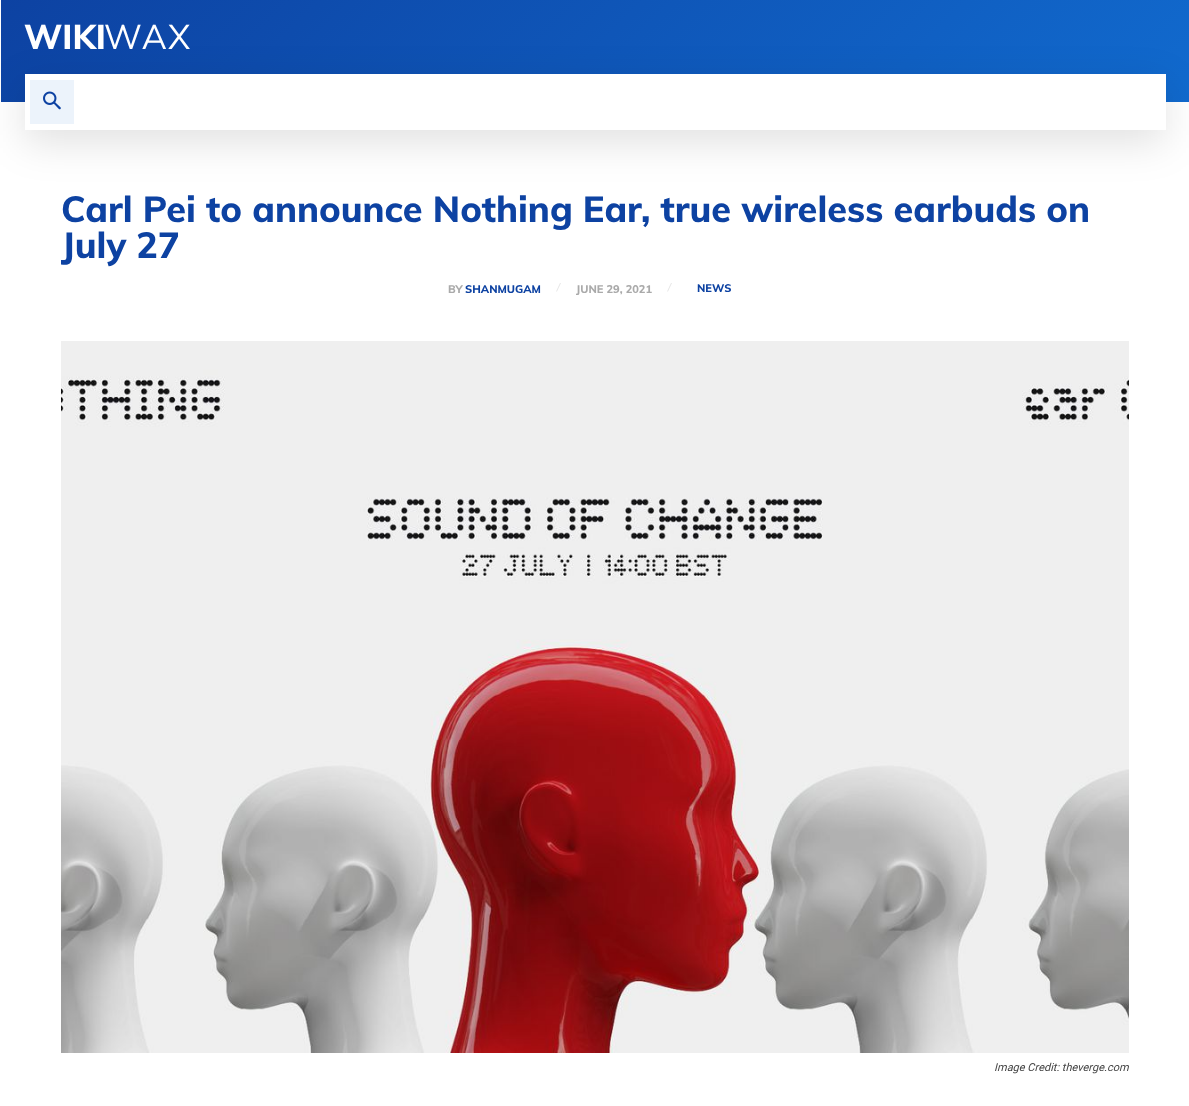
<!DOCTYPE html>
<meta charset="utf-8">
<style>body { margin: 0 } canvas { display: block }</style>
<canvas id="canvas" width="1189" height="1106"></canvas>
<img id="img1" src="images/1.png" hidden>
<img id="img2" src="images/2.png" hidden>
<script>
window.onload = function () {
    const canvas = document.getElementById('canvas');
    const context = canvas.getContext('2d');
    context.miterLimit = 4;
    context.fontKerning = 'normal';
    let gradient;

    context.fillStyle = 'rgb(255, 255, 255)';
    context.fillRect(0, 0, 1189, 1106);
    gradient = context.createLinearGradient(918, 374, 272, -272);
    gradient.addColorStop(0, 'rgb(17, 106, 206)');
    gradient.addColorStop(1, 'rgb(13, 66, 162)');
    context.fillStyle = gradient;
    context.fillRect(1, 0, 1188, 102);
    context.fillStyle = 'rgba(0, 0, 0, 0.12)';
    context.filter = 'blur(20px)';
    context.beginPath();
    context.rect(24, 86, 1141, 56);
    context.fill();
    context.filter = 'none';
    context.fillStyle = 'rgb(255, 255, 255)';
    context.fillRect(25, 74, 1141, 56);
    context.fillStyle = 'rgb(236, 243, 251)';
    context.fillRect(30, 80, 44, 44);
    context.drawImage(document.getElementById('img1'), 43, 91, 18, 19);
    context.fillStyle = 'rgb(230, 230, 230)';
    context.beginPath();
    context.moveTo(560, 283);
    context.lineTo(556, 291.5);
    context.lineTo(557, 291.5);
    context.lineTo(561, 283);
    context.closePath();
    context.fill();
    context.beginPath();
    context.moveTo(671, 283);
    context.lineTo(667, 291.5);
    context.lineTo(668, 291.5);
    context.lineTo(672, 283);
    context.closePath();
    context.fill();
    context.drawImage(document.getElementById('img2'), 61, 341, 1068, 712);
    context.font = '800 34px Muli';
    context.fillStyle = 'rgb(255, 255, 255)';
    context.fillText('WIKI', 24, 49);
    context.letterSpacing = '2px';
    context.font = '34px Muli';
    context.fillText('WAX', 104, 49);
    context.letterSpacing = '0px';
    context.font = '800 36px Muli';
    context.fillStyle = 'rgb(13, 66, 162)';
    context.fillText('Carl Pei to announce Nothing Ear, true wireless earbuds on', 61, 222);
    context.fillText('July 27', 61, 258);
    context.font = '800 11px Muli';
    context.fillStyle = 'rgb(170, 170, 170)';
    context.fillText('BY', 448, 293);
    context.fillStyle = 'rgb(13, 66, 162)';
    context.fillText('SHANMUGAM', 465, 293);
    context.fillStyle = 'rgb(170, 170, 170)';
    context.fillText('JUNE 29, 2021', 576, 293);
    context.fillStyle = 'rgb(13, 66, 162)';
    context.fillText('NEWS', 697, 292);
    context.font = 'italic 11px Roboto';
    context.fillStyle = 'rgb(68, 68, 68)';
    context.fillText('Image Credit: theverge.com', 994, 1071);
};
</script>
